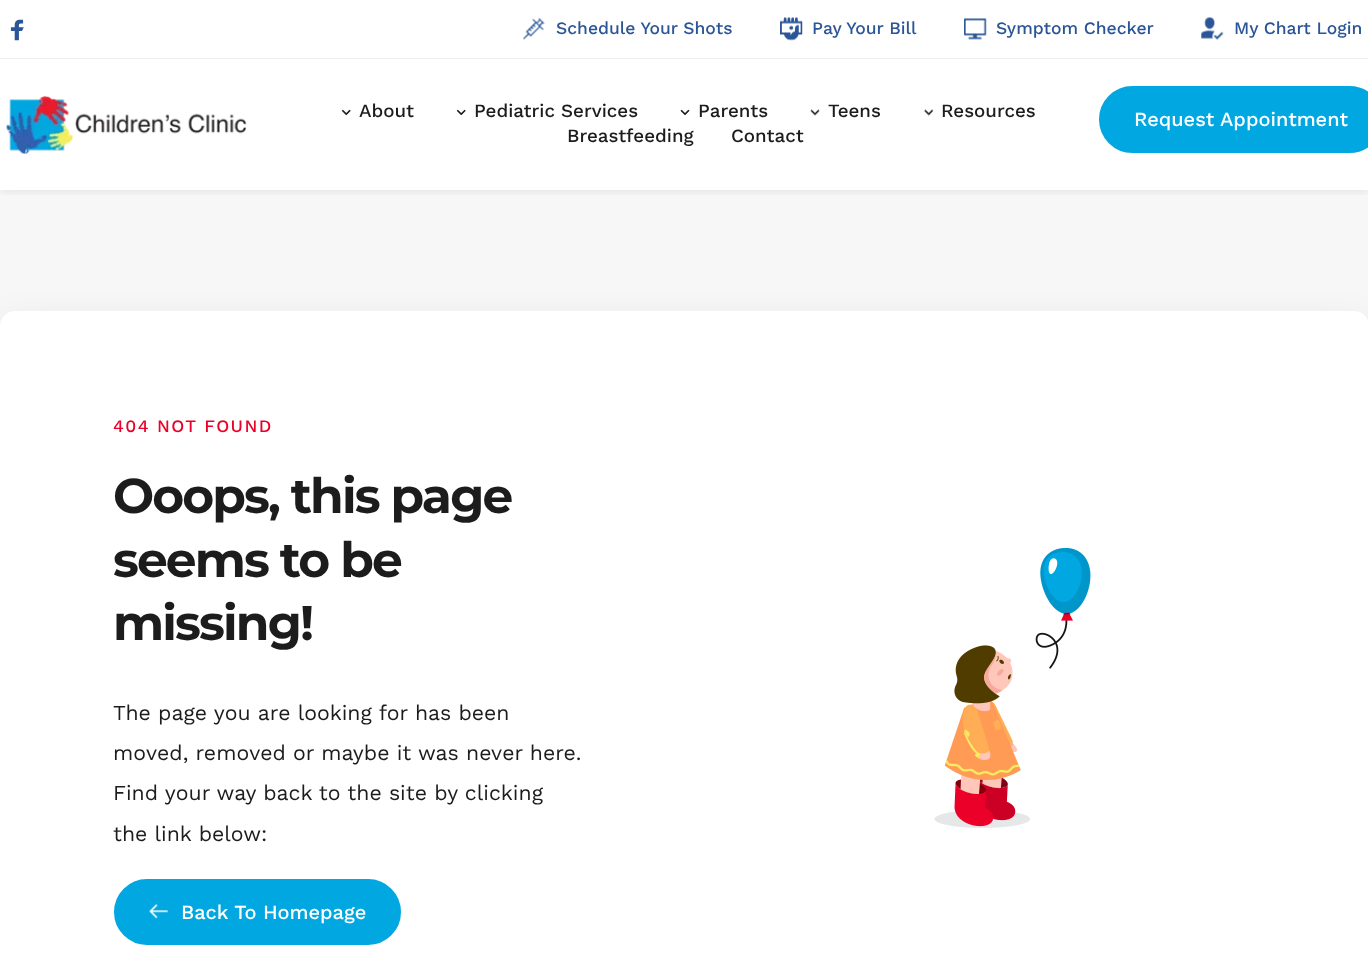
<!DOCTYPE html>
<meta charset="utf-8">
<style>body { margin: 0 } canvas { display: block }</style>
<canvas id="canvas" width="1368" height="979"></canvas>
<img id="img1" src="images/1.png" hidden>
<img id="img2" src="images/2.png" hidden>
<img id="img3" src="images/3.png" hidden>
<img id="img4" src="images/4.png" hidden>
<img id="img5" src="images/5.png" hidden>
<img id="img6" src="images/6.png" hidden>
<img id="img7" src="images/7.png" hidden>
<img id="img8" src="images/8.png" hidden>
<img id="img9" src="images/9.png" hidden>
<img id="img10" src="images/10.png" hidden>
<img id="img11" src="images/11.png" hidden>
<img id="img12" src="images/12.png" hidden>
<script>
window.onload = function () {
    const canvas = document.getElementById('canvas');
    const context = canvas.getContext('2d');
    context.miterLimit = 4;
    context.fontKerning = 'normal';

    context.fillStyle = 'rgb(255, 255, 255)';
    context.fillRect(0, 0, 1368, 979);
    context.fillStyle = 'rgb(247, 247, 247)';
    context.fillRect(0, 190, 1368, 136);
    context.save();
    context.beginPath();
    context.rect(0, 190, 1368, 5);
    context.clip();
    context.fillStyle = 'rgba(0, 0, 0, 0.1)';
    context.filter = 'blur(6px)';
    context.beginPath();
    context.rect(0, 0, 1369, 190);
    context.fill();
    context.filter = 'none';
    context.restore();
    context.drawImage(document.getElementById('img1'), 10, 19, 14, 22);
    context.drawImage(document.getElementById('img2'), 523, 17, 22, 23);
    context.drawImage(document.getElementById('img3'), 780, 17, 23, 24);
    context.drawImage(document.getElementById('img4'), 964, 18, 23, 22);
    context.drawImage(document.getElementById('img5'), 1201, 17, 23, 23);
    context.fillStyle = 'rgb(237, 237, 238)';
    context.fillRect(0, 58, 1368, 1);
    context.drawImage(document.getElementById('img6'), 6, 96, 241, 58);
    context.drawImage(document.getElementById('img7'), 341, 109, 10, 6);
    context.drawImage(document.getElementById('img7'), 456, 109, 10, 6);
    context.drawImage(document.getElementById('img8'), 680, 109, 10, 6);
    context.drawImage(document.getElementById('img9'), 810, 109, 10, 7);
    context.drawImage(document.getElementById('img10'), 924, 109, 10, 7);
    context.fillStyle = 'rgb(0, 167, 225)';
    context.beginPath();
    context.roundRect(1100.5, 87.5, 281, 64, 32);
    context.fill();
    context.strokeStyle = 'rgb(0, 167, 225)';
    context.lineWidth = 3;
    context.stroke();
    context.fillStyle = 'rgba(28, 28, 28, 0.12)';
    context.filter = 'blur(19px)';
    context.beginPath();
    context.roundRect(0, 328, 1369, 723, 15);
    context.fill();
    context.filter = 'none';
    context.fillStyle = 'rgb(255, 255, 255)';
    context.beginPath();
    context.roundRect(0, 311, 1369, 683, 15);
    context.fill();
    context.fillStyle = 'rgb(0, 167, 225)';
    context.beginPath();
    context.roundRect(115.5, 880.5, 284, 63, 31.5);
    context.fill();
    context.stroke();
    context.drawImage(document.getElementById('img11'), 149, 904, 19, 15);
    context.drawImage(document.getElementById('img12'), 934, 547, 157, 281);
    context.font = '500 17.5px Work Sans';
    context.fillStyle = 'rgb(43, 85, 151)';
    context.fillText('Schedule Your Shots', 556, 34);
    context.fillText('Pay Your Bill', 812, 34);
    context.fillText('Symptom Checker', 996, 34);
    context.fillText('My Chart Login', 1234, 34);
    context.font = '500 18.75px Work Sans';
    context.fillStyle = 'rgb(28, 28, 28)';
    context.fillText('About', 359, 117);
    context.fillText('Pediatric Services', 474, 117);
    context.fillText('Parents', 698, 117);
    context.fillText('Teens', 828, 117);
    context.fillText('Resources', 941, 117);
    context.fillText('Breastfeeding', 567, 142);
    context.fillText('Contact', 731, 142);
    context.font = '500 20px Work Sans';
    context.fillStyle = 'rgb(255, 255, 255)';
    context.fillText('Request Appointment', 1134, 126);
    context.letterSpacing = '1.4px';
    context.font = '500 17.5px Work Sans';
    context.fillStyle = 'rgb(234, 0, 41)';
    context.fillText('404 NOT FOUND', 113, 432);
    context.letterSpacing = '-1.9px';
    context.font = '100 48.75px Montserrat';
    context.fillStyle = 'rgb(28, 28, 28)';
    context.fillText('Ooops, this page', 113, 513);
    context.fillText('seems to be', 113, 577);
    context.fillText('missing!', 113, 640);
    context.letterSpacing = '0px';
    context.font = '21.25px Work Sans';
    context.fillText('The page you are looking for has been', 113, 720);
    context.fillText('moved, removed or maybe it was never here.', 113, 760);
    context.fillText('Find your way back to the site by clicking', 113, 800);
    context.fillText('the link below:', 113, 841);
    context.font = '500 20px Work Sans';
    context.fillStyle = 'rgb(255, 255, 255)';
    context.fillText('Back To Homepage', 181, 919);
};
</script>
